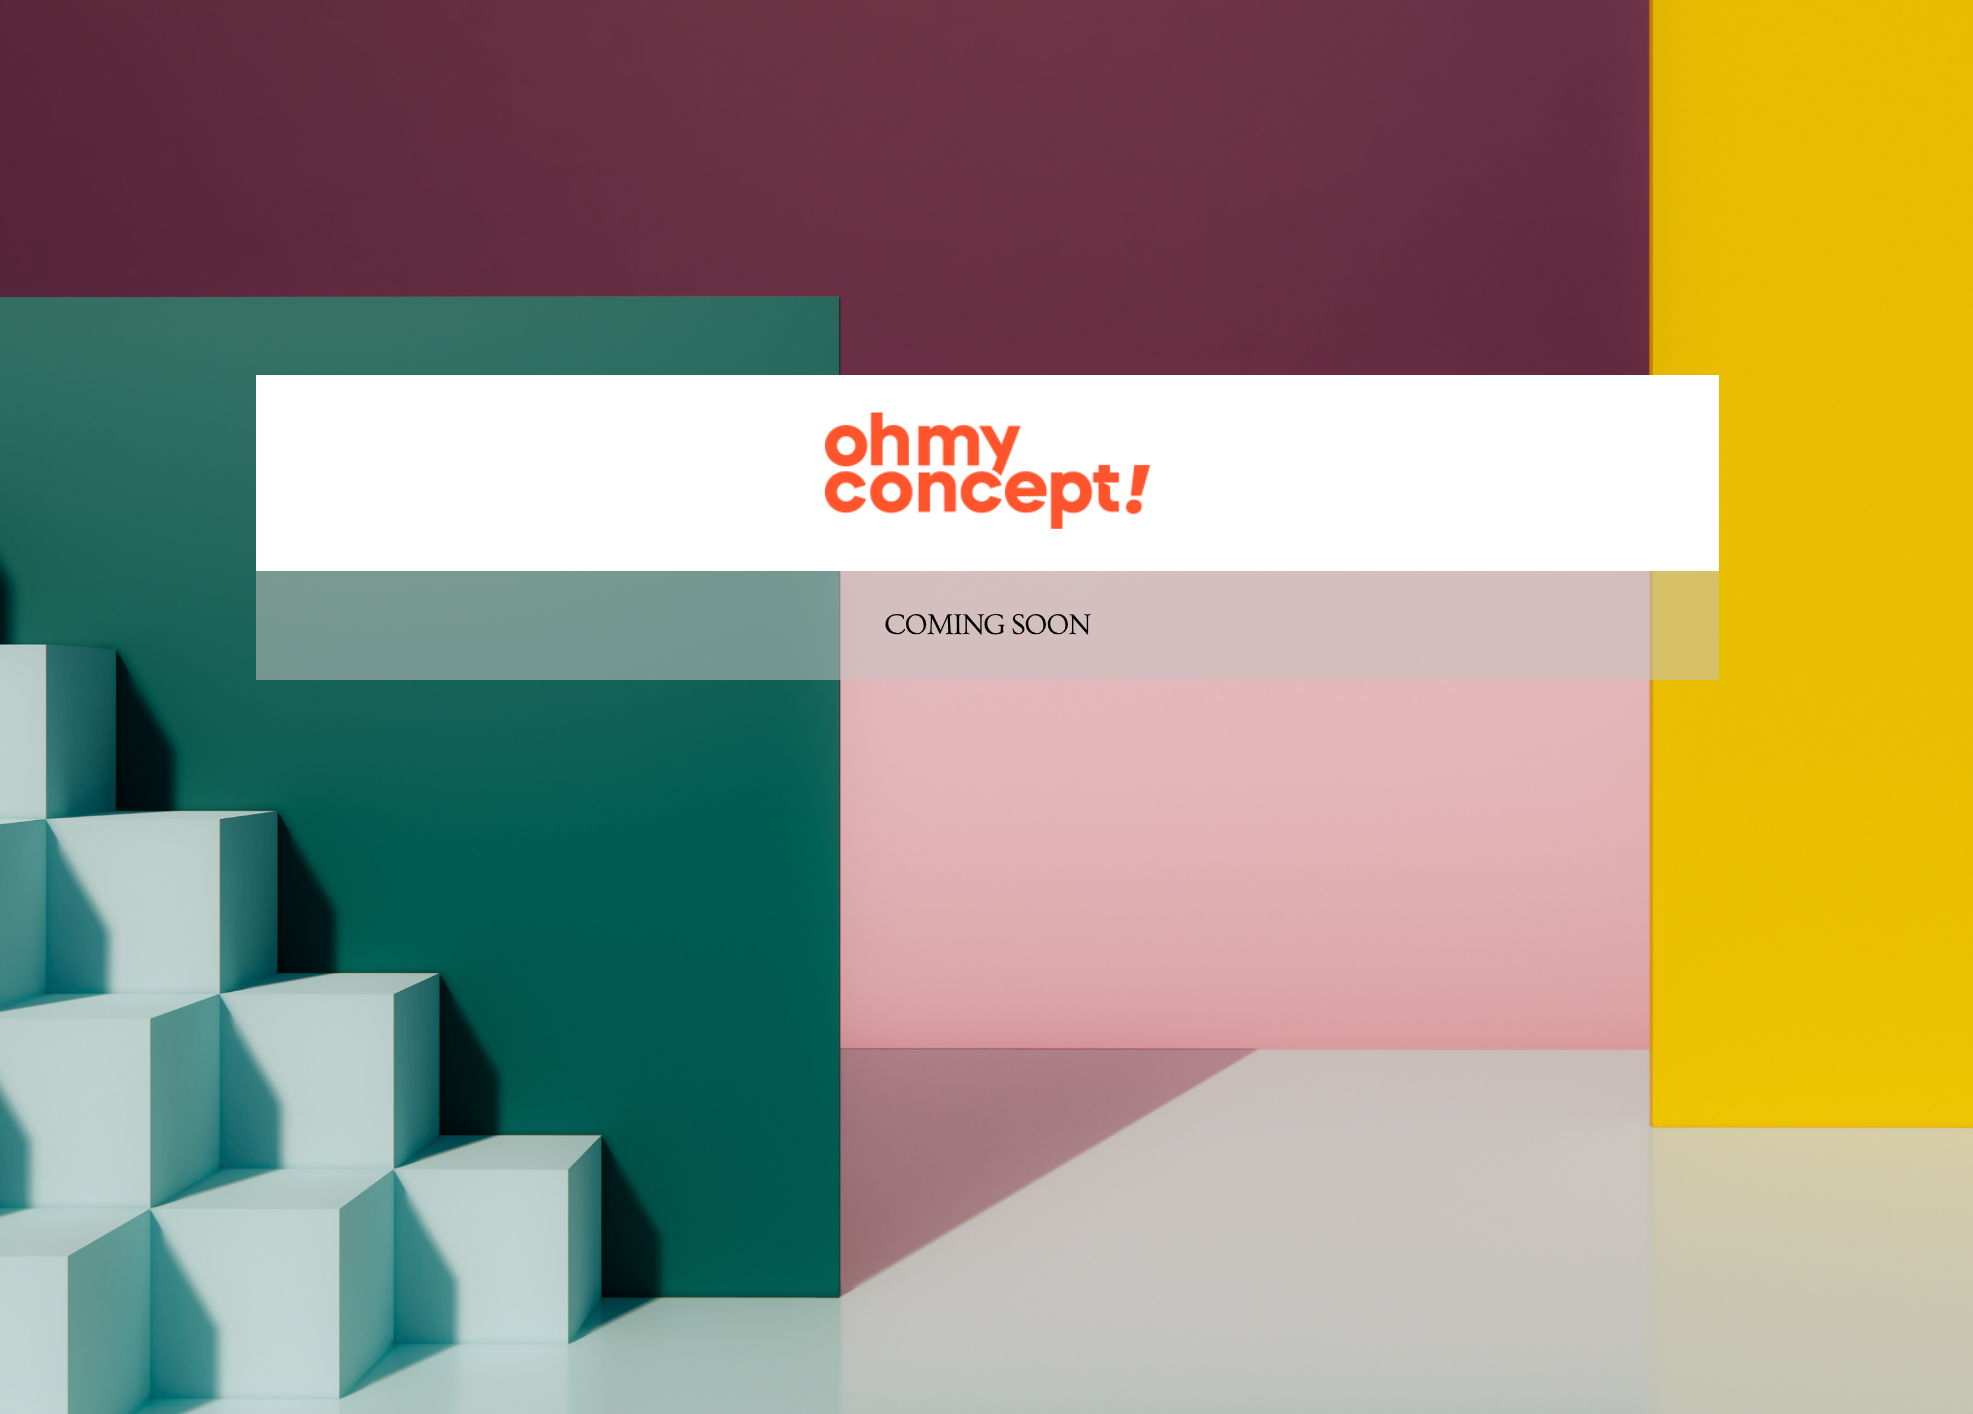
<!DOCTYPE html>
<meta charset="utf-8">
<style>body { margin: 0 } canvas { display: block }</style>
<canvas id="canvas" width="1973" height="1414"></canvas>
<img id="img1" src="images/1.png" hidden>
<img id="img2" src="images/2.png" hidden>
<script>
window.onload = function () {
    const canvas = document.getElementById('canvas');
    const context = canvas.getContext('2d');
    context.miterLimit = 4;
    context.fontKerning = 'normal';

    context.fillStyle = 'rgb(255, 255, 255)';
    context.fillRect(0, 0, 1973, 1414);
    context.drawImage(document.getElementById('img1'), 0, 0, 1973, 1414);
    context.fillRect(256, 375, 1463, 196);
    context.drawImage(document.getElementById('img2'), 825, 412, 325, 117);
    context.fillStyle = 'rgba(197, 196, 192, 0.54)';
    context.fillRect(256, 571, 1463, 109);
    context.letterSpacing = '-1.25px';
    context.font = '30px Ovo';
    context.fillStyle = 'rgb(0, 0, 0)';
    context.fillText('COMING SOON', 884, 634);
};
</script>
